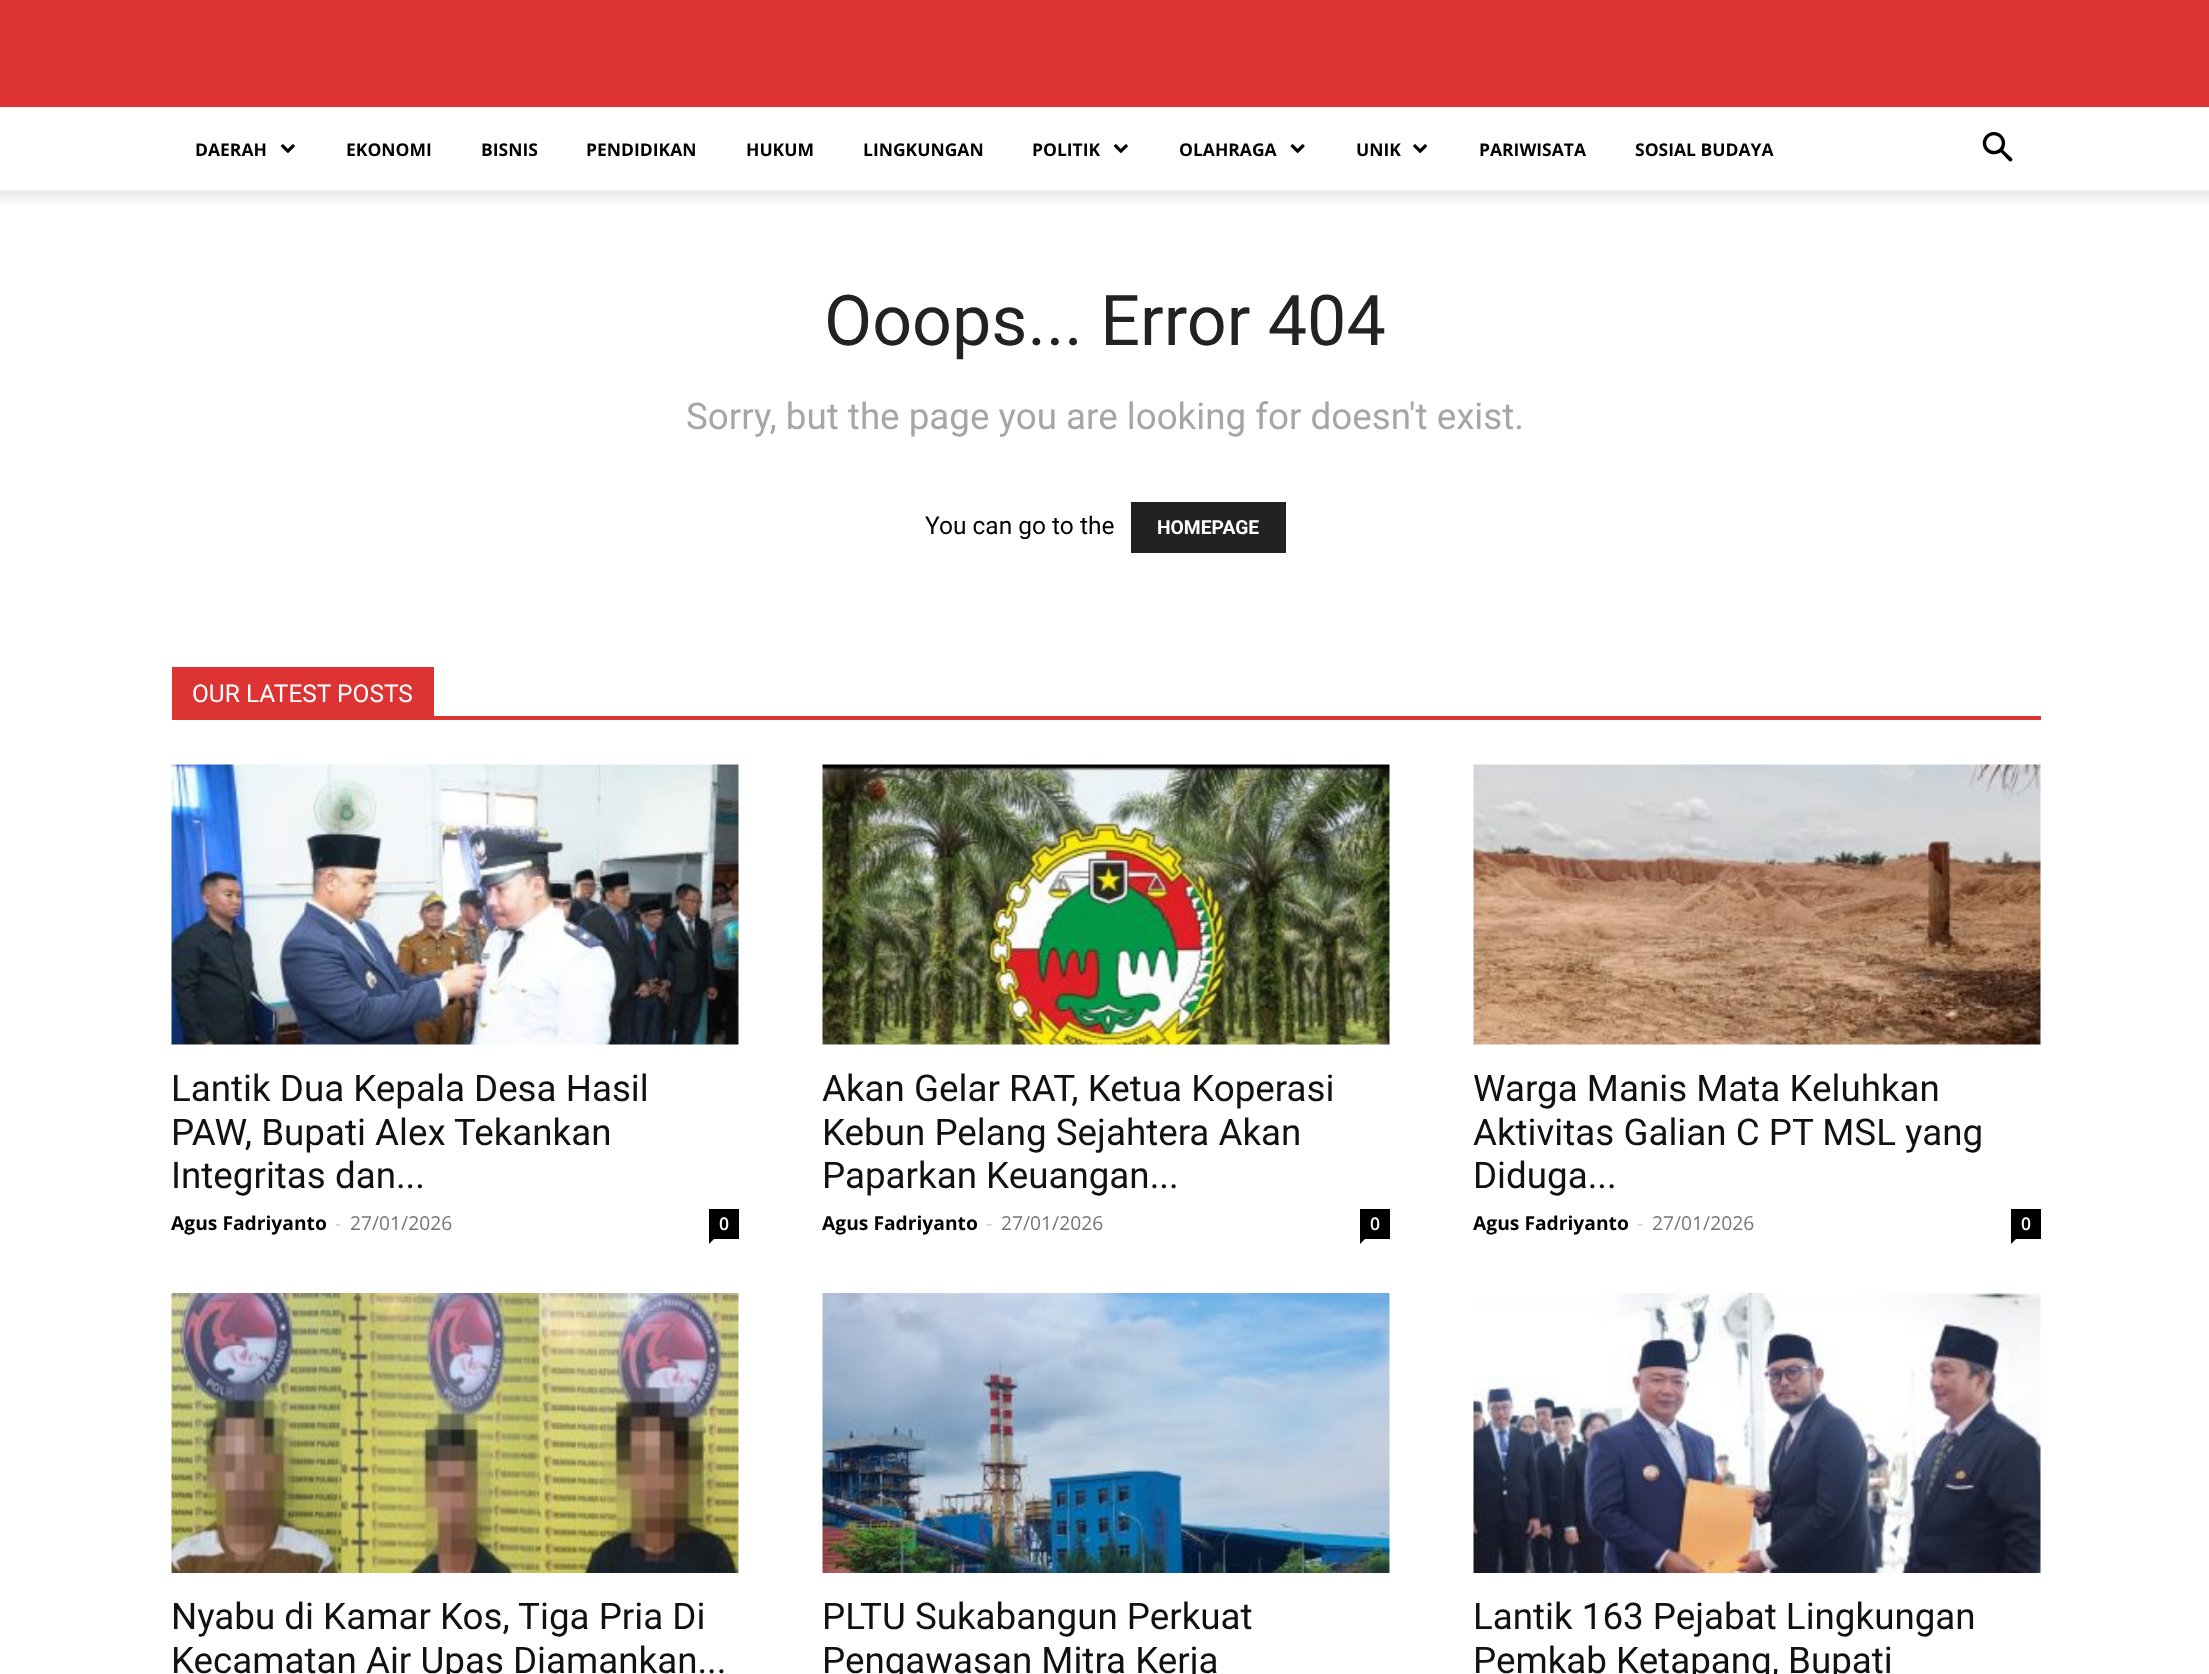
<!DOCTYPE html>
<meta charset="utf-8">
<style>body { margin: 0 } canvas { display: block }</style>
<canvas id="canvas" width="2209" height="1674"></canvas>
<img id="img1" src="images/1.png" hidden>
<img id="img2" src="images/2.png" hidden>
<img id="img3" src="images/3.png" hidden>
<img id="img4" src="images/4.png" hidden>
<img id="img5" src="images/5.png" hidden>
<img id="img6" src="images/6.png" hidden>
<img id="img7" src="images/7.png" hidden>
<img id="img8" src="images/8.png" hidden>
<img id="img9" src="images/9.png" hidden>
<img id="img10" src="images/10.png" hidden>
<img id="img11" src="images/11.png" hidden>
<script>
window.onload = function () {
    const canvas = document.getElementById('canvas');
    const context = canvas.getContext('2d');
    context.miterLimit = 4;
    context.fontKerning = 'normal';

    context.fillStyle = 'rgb(255, 255, 255)';
    context.fillRect(0, 0, 2209, 1674);
    context.fillStyle = 'rgb(221, 51, 51)';
    context.fillRect(0, 0, 2209, 107);
    context.drawImage(document.getElementById('img1'), 280, 144, 15, 10);
    context.drawImage(document.getElementById('img1'), 1113, 144, 15, 10);
    context.drawImage(document.getElementById('img2'), 1290, 144, 15, 10);
    context.drawImage(document.getElementById('img3'), 1413, 144, 15, 10);
    context.drawImage(document.getElementById('img4'), 1982, 132, 31, 30);
    context.drawImage(document.getElementById('img5'), 0, 190, 2209, 15);
    context.fillStyle = 'rgb(34, 34, 34)';
    context.fillRect(1131, 502, 155, 51);
    context.fillStyle = 'rgb(221, 51, 51)';
    context.fillRect(172, 716, 1869, 4);
    context.fillRect(172, 667, 262, 49);
    context.drawImage(document.getElementById('img6'), 171, 764, 568, 281);
    context.fillStyle = 'rgb(0, 0, 0)';
    context.fillRect(709, 1209, 30, 30);
    context.beginPath();
    context.moveTo(709, 1239);
    context.lineTo(714, 1239);
    context.lineTo(709, 1244);
    context.closePath();
    context.fill();
    context.drawImage(document.getElementById('img7'), 822, 764, 568, 281);
    context.fillRect(1360, 1209, 30, 30);
    context.beginPath();
    context.moveTo(1360, 1239);
    context.lineTo(1365, 1239);
    context.lineTo(1360, 1244);
    context.closePath();
    context.fill();
    context.drawImage(document.getElementById('img8'), 1473, 764, 568, 281);
    context.fillRect(2011, 1209, 30, 30);
    context.beginPath();
    context.moveTo(2011, 1239);
    context.lineTo(2016, 1239);
    context.lineTo(2011, 1244);
    context.closePath();
    context.fill();
    context.drawImage(document.getElementById('img9'), 171, 1293, 568, 280);
    context.drawImage(document.getElementById('img10'), 822, 1293, 568, 280);
    context.drawImage(document.getElementById('img11'), 1473, 1293, 568, 280);
    context.font = 'bold 17.5px Open Sans';
    context.fillText('DAERAH', 195, 156);
    context.fillText('EKONOMI', 346, 156);
    context.fillText('BISNIS', 481, 156);
    context.fillText('PENDIDIKAN', 586, 156);
    context.fillText('HUKUM', 746, 156);
    context.fillText('LINGKUNGAN', 863, 156);
    context.fillText('POLITIK', 1032, 156);
    context.fillText('OLAHRAGA', 1179, 156);
    context.fillText('UNIK', 1356, 156);
    context.fillText('PARIWISATA', 1479, 156);
    context.fillText('SOSIAL BUDAYA', 1635, 156);
    context.font = '70px Roboto';
    context.fillStyle = 'rgb(34, 34, 34)';
    context.fillText('Ooops... Error 404', 824, 345);
    context.font = '36.75px Roboto';
    context.fillStyle = 'rgb(166, 166, 166)';
    context.fillText('Sorry, but the page you are looking for doesn\'t exist.', 686, 429);
    context.font = '24.5px Roboto';
    context.fillStyle = 'rgb(0, 0, 0)';
    context.fillText('You can go to the', 925, 534);
    context.font = 'bold 19.25px Roboto';
    context.fillStyle = 'rgb(255, 255, 255)';
    context.fillText('HOMEPAGE', 1157, 534);
    context.font = '24.5px Roboto';
    context.fillText('OUR LATEST POSTS', 192, 702);
    context.font = '36.75px Roboto';
    context.fillStyle = 'rgb(17, 17, 17)';
    context.fillText('Lantik Dua Kepala Desa Hasil', 171, 1101);
    context.fillText('PAW, Bupati Alex Tekankan', 171, 1145);
    context.fillText('Integritas dan...', 171, 1188);
    context.font = 'bold 19.25px Open Sans';
    context.fillStyle = 'rgb(0, 0, 0)';
    context.fillText('Agus Fadriyanto', 171, 1230);
    context.font = '19.25px Open Sans';
    context.fillStyle = 'rgb(204, 204, 204)';
    context.fillText('-', 335, 1230);
    context.fillStyle = 'rgb(118, 118, 118)';
    context.fillText('27/01/2026', 350, 1230);
    context.font = '600 17.5px Open Sans';
    context.fillStyle = 'rgb(255, 255, 255)';
    context.fillText('0', 719, 1230);
    context.font = '36.75px Roboto';
    context.fillStyle = 'rgb(17, 17, 17)';
    context.fillText('Akan Gelar RAT, Ketua Koperasi', 822, 1101);
    context.fillText('Kebun Pelang Sejahtera Akan', 822, 1145);
    context.fillText('Paparkan Keuangan...', 822, 1188);
    context.font = 'bold 19.25px Open Sans';
    context.fillStyle = 'rgb(0, 0, 0)';
    context.fillText('Agus Fadriyanto', 822, 1230);
    context.font = '19.25px Open Sans';
    context.fillStyle = 'rgb(204, 204, 204)';
    context.fillText('-', 986, 1230);
    context.fillStyle = 'rgb(118, 118, 118)';
    context.fillText('27/01/2026', 1001, 1230);
    context.font = '600 17.5px Open Sans';
    context.fillStyle = 'rgb(255, 255, 255)';
    context.fillText('0', 1370, 1230);
    context.font = '36.75px Roboto';
    context.fillStyle = 'rgb(17, 17, 17)';
    context.fillText('Warga Manis Mata Keluhkan', 1473, 1101);
    context.fillText('Aktivitas Galian C PT MSL yang', 1473, 1145);
    context.fillText('Diduga...', 1473, 1188);
    context.font = 'bold 19.25px Open Sans';
    context.fillStyle = 'rgb(0, 0, 0)';
    context.fillText('Agus Fadriyanto', 1473, 1230);
    context.font = '19.25px Open Sans';
    context.fillStyle = 'rgb(204, 204, 204)';
    context.fillText('-', 1637, 1230);
    context.fillStyle = 'rgb(118, 118, 118)';
    context.fillText('27/01/2026', 1652, 1230);
    context.font = '600 17.5px Open Sans';
    context.fillStyle = 'rgb(255, 255, 255)';
    context.fillText('0', 2021, 1230);
    context.font = '36.75px Roboto';
    context.fillStyle = 'rgb(17, 17, 17)';
    context.fillText('Nyabu di Kamar Kos, Tiga Pria Di', 171, 1629);
    context.fillText('Kecamatan Air Upas Diamankan...', 171, 1673);
    context.fillText('PLTU Sukabangun Perkuat', 822, 1629);
    context.fillText('Pengawasan Mitra Kerja', 822, 1673);
    context.fillText('Lantik 163 Pejabat Lingkungan', 1473, 1629);
    context.fillText('Pemkab Ketapang, Bupati', 1473, 1673);
};
</script>
